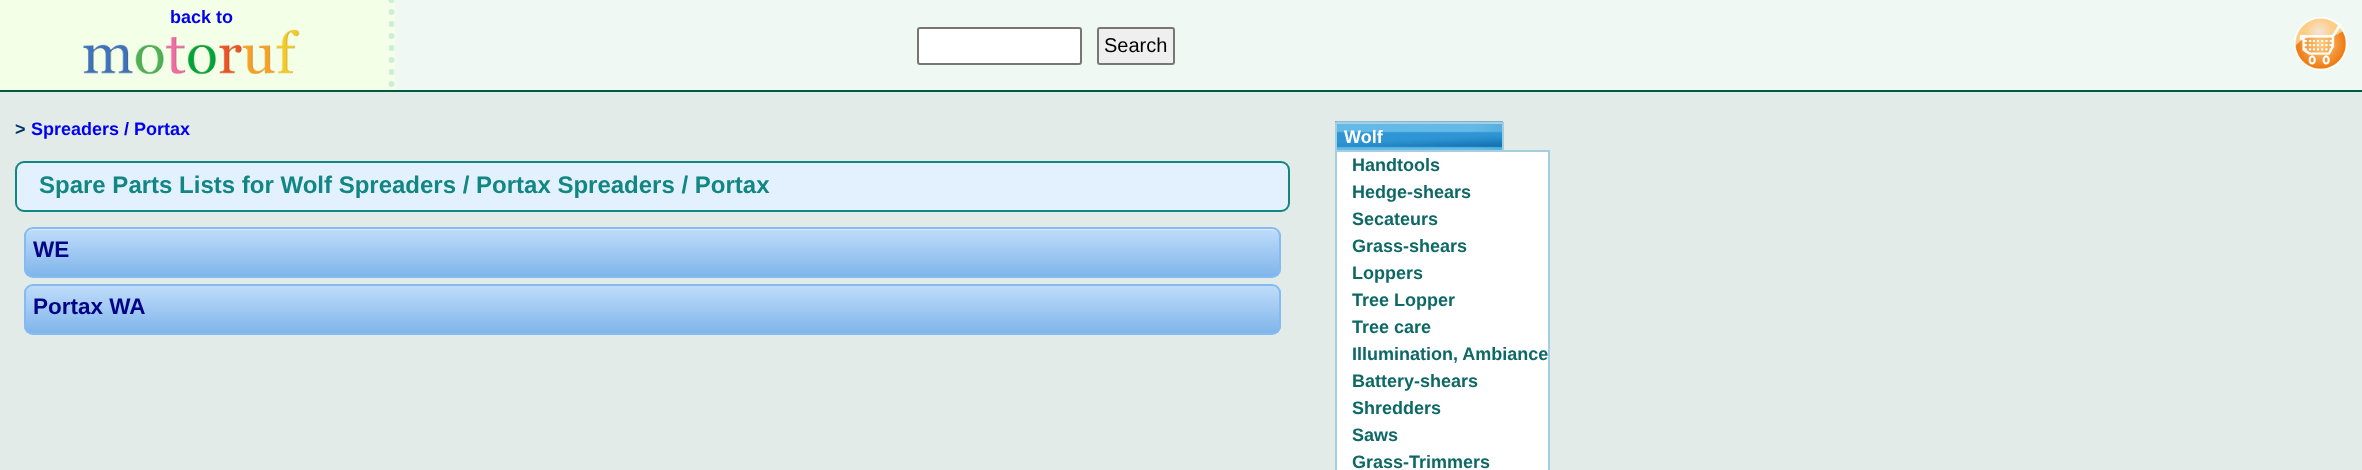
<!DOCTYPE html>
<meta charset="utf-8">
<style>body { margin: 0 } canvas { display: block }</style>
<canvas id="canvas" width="2362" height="470"></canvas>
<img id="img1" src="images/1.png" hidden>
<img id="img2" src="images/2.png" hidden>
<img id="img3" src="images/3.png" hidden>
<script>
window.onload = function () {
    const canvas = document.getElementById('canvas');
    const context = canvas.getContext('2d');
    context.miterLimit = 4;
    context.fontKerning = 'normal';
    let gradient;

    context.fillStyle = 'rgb(226, 235, 232)';
    context.fillRect(0, 0, 2362, 470);
    context.fillStyle = 'rgb(239, 248, 242)';
    context.fillRect(395, 0, 1967, 90);
    context.fillStyle = 'rgb(0, 89, 65)';
    context.fillRect(0, 90, 2362, 2);
    context.fillStyle = 'rgb(243, 255, 230)';
    context.fillRect(0, 0, 395, 90);
    context.beginPath();
    context.moveTo(391.5, 0);
    context.lineTo(391.5, 90);
    context.strokeStyle = 'rgb(204, 238, 215)';
    context.lineWidth = 6;
    context.lineCap = 'round';
    context.setLineDash([0, 12]);
    context.stroke();
    context.fillRect(388, 10, 1, 73);
    context.drawImage(document.getElementById('img1'), 83, 29, 217, 46);
    context.fillStyle = 'rgb(255, 255, 255)';
    context.beginPath();
    context.roundRect(918, 28, 163, 36, 2);
    context.fill();
    context.strokeStyle = 'rgb(118, 118, 118)';
    context.lineWidth = 2;
    context.setLineDash([]);
    context.stroke();
    context.fillStyle = 'rgb(239, 239, 239)';
    context.beginPath();
    context.roundRect(1098, 28, 76, 36, 2);
    context.fill();
    context.stroke();
    context.drawImage(document.getElementById('img2'), 2294, 17, 54, 54);
    context.fillStyle = 'rgb(227, 241, 255)';
    context.beginPath();
    context.roundRect(16, 162, 1273, 49, 8);
    context.fill();
    context.strokeStyle = 'rgb(17, 134, 131)';
    context.stroke();
    context.save();
    context.beginPath();
    context.roundRect(24, 227, 1257, 51, 9);
    context.clip();
    gradient = context.createLinearGradient(653, 228, 653, 276);
    gradient.addColorStop(0.05, 'rgb(189, 219, 250)');
    gradient.addColorStop(1, 'rgb(128, 181, 234)');
    context.fillStyle = gradient;
    context.fillRect(24, 228, 1257, 48);
    context.restore();
    context.fillStyle = 'rgb(220, 236, 251)';
    context.beginPath();
    context.moveTo(33, 230);
    context.lineTo(1272, 230);
    context.bezierCurveTo(1276, 230, 1280, 233, 1280, 237);
    context.bezierCurveTo(1280, 232, 1277, 228, 1272, 228);
    context.lineTo(34, 228);
    context.bezierCurveTo(29, 228, 26, 232, 26, 237);
    context.bezierCurveTo(26, 233, 29, 230, 33, 230);
    context.closePath();
    context.fill();
    context.beginPath();
    context.roundRect(25, 228, 1255, 49, 8);
    context.strokeStyle = 'rgb(132, 187, 243)';
    context.stroke();
    context.save();
    context.beginPath();
    context.roundRect(24, 284, 1257, 51, 9);
    context.clip();
    gradient = context.createLinearGradient(653, 285, 653, 333);
    gradient.addColorStop(0.05, 'rgb(189, 219, 250)');
    gradient.addColorStop(1, 'rgb(128, 181, 234)');
    context.fillStyle = gradient;
    context.fillRect(24, 285, 1257, 48);
    context.restore();
    context.beginPath();
    context.moveTo(33, 286);
    context.lineTo(1272, 286);
    context.bezierCurveTo(1276, 286, 1280, 290, 1280, 294);
    context.bezierCurveTo(1280, 289, 1277, 285, 1272, 285);
    context.lineTo(34, 285);
    context.bezierCurveTo(29, 285, 26, 289, 26, 294);
    context.bezierCurveTo(26, 290, 29, 286, 33, 286);
    context.closePath();
    context.fill();
    context.beginPath();
    context.roundRect(25, 285, 1255, 49, 8);
    context.stroke();
    context.drawImage(document.getElementById('img3'), 1335, 121, 168, 29);
    context.fillStyle = 'rgb(163, 207, 224)';
    context.fillRect(1335, 122, 168, 2);
    context.fillRect(1502, 122, 2, 28);
    context.fillRect(1335, 122, 2, 28);
    context.fillStyle = 'rgb(255, 255, 255)';
    context.beginPath();
    context.rect(1336, 151, 213, 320);
    context.fill();
    context.strokeStyle = 'rgb(163, 207, 224)';
    context.stroke();
    context.font = 'bold 18px Liberation Sans';
    context.fillStyle = 'rgb(0, 0, 238)';
    context.fillText('back to', 170, 23);
    context.font = '20px Liberation Sans';
    context.fillStyle = 'rgb(0, 0, 0)';
    context.fillText('Search', 1104, 52);
    context.font = 'bold 18px Liberation Sans';
    context.fillStyle = 'rgb(0, 51, 102)';
    context.fillText('>', 15, 135);
    context.fillStyle = 'rgb(0, 0, 238)';
    context.fillText('Spreaders / Portax', 31, 135);
    context.font = 'bold 24px Liberation Sans';
    context.fillStyle = 'rgb(17, 134, 131)';
    context.fillText('Spare Parts Lists for Wolf Spreaders / Portax Spreaders / Portax', 39, 193);
    context.font = 'bold 22.5px Liberation Sans';
    context.fillStyle = 'rgb(3, 3, 134)';
    context.fillText('WE', 33, 257);
    context.fillText('Portax WA', 33, 314);
    context.font = 'bold 18px Liberation Sans';
    context.fillStyle = 'rgb(255, 255, 255)';
    context.fillText('Wolf', 1344, 143);
    context.fillStyle = 'rgb(13, 104, 102)';
    context.fillText('Handtools', 1352, 171);
    context.fillText('Hedge-shears', 1352, 198);
    context.fillText('Secateurs', 1352, 225);
    context.fillText('Grass-shears', 1352, 252);
    context.fillText('Loppers', 1352, 279);
    context.fillText('Tree Lopper', 1352, 306);
    context.fillText('Tree care', 1352, 333);
    context.fillText('Illumination, Ambiance', 1352, 360);
    context.fillText('Battery-shears', 1352, 387);
    context.fillText('Shredders', 1352, 414);
    context.fillText('Saws', 1352, 441);
    context.fillText('Grass-Trimmers', 1352, 468);
};
</script>
